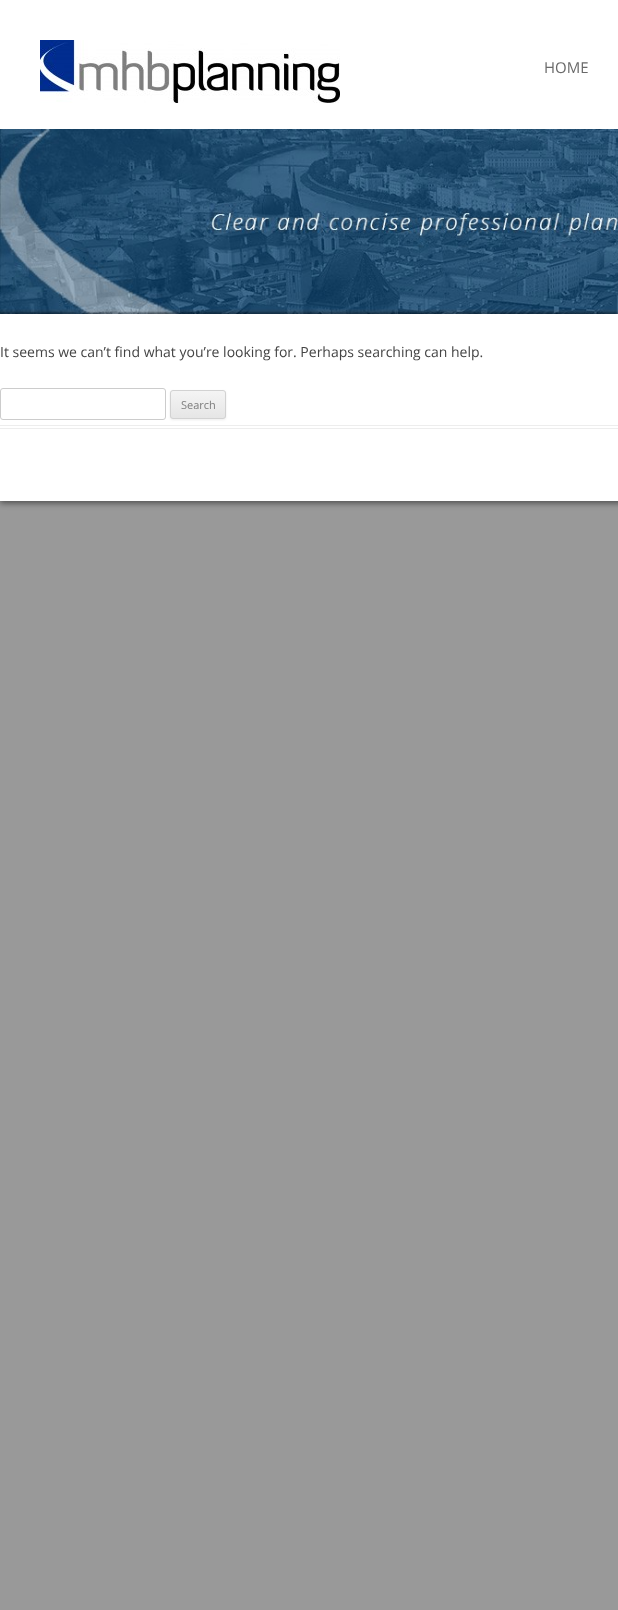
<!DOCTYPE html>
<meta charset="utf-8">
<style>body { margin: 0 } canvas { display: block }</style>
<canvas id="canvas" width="618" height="1610"></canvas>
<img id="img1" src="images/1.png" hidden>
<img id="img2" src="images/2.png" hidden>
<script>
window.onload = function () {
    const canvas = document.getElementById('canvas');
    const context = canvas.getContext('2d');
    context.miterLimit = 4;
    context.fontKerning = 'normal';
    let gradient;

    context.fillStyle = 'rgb(153, 153, 153)';
    context.fillRect(0, 0, 618, 1610);
    context.fillStyle = 'rgba(0, 0, 0, 0.5)';
    context.filter = 'blur(3px)';
    context.beginPath();
    context.rect(0, 2, 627, 501);
    context.fill();
    context.filter = 'none';
    context.fillStyle = 'rgb(255, 255, 255)';
    context.fillRect(0, 0, 618, 501);
    context.drawImage(document.getElementById('img1'), 40, 40, 300, 63);
    context.drawImage(document.getElementById('img2'), 0, 129, 618, 185);
    context.fillStyle = 'rgb(237, 237, 237)';
    context.fillRect(0, 425, 618, 1);
    context.fillRect(0, 428, 618, 1);
    context.beginPath();
    context.roundRect(0.5, 388.5, 165, 31, 2.5);
    context.strokeStyle = 'rgb(204, 204, 204)';
    context.stroke();
    context.fillStyle = 'rgba(64, 64, 64, 0.1)';
    context.filter = 'blur(1px)';
    context.beginPath();
    context.roundRect(170, 391, 56, 29, 3);
    context.fill();
    context.filter = 'none';
    context.save();
    context.beginPath();
    context.roundRect(170, 390, 56, 29, 3);
    context.clip();
    gradient = context.createLinearGradient(198, 391, 198, 418);
    gradient.addColorStop(0, 'rgb(244, 244, 244)');
    gradient.addColorStop(1, 'rgb(230, 230, 230)');
    context.fillStyle = gradient;
    context.fillRect(170, 391, 56, 27);
    context.restore();
    context.beginPath();
    context.roundRect(170.5, 390.5, 55, 28, 2.5);
    context.strokeStyle = 'rgb(210, 210, 210)';
    context.stroke();
    context.font = '15px Open Sans';
    context.fillStyle = 'rgb(106, 106, 106)';
    context.fillText('HOME', 544, 73);
    context.font = '14px Open Sans';
    context.fillStyle = 'rgb(68, 68, 68)';
    context.fillText('It seems we can’t find what you’re looking for. Perhaps searching can help.', 0, 357);
    context.font = '11px Open Sans';
    context.fillStyle = 'rgb(124, 124, 124)';
    context.fillText('Search', 181, 409);
};
</script>
